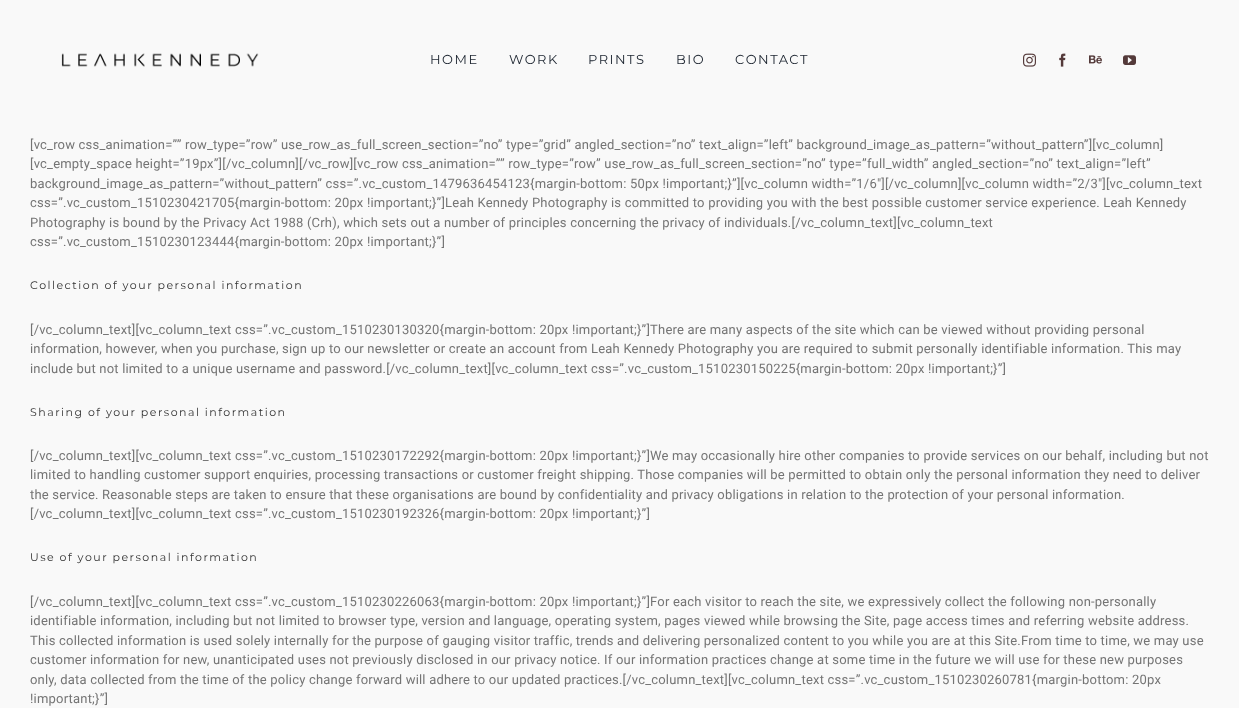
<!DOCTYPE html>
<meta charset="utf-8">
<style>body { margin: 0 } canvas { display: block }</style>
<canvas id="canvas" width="1239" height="708"></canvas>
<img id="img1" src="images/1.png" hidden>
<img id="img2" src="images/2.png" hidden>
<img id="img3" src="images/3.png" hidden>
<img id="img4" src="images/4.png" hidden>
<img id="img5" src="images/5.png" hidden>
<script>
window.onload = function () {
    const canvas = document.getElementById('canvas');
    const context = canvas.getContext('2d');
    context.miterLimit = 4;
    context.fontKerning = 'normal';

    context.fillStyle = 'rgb(249, 249, 249)';
    context.fillRect(0, 0, 1239, 708);
    context.drawImage(document.getElementById('img1'), 61, 53, 198, 14);
    context.drawImage(document.getElementById('img2'), 1023, 53, 13, 14);
    context.drawImage(document.getElementById('img3'), 1059, 53, 7, 14);
    context.drawImage(document.getElementById('img4'), 1089, 55, 13, 9);
    context.drawImage(document.getElementById('img5'), 1123, 55, 13, 10);
    context.letterSpacing = '1.5px';
    context.font = '13px Montserrat';
    context.fillStyle = 'rgb(33, 41, 52)';
    context.fillText('HOME', 430, 64);
    context.fillText('WORK', 509, 64);
    context.fillText('PRINTS', 588, 64);
    context.fillText('BIO', 676, 64);
    context.fillText('CONTACT', 735, 64);
    context.letterSpacing = '0.2px';
    context.font = '13px Roboto';
    context.fillStyle = 'rgb(116, 116, 116)';
    context.fillText('[vc_row css_animation=”” row_type=”row” use_row_as_full_screen_section=”no” type=”grid” angled_section=”no” text_align=”left” background_image_as_pattern=”without_pattern”][vc_column]', 30, 149);
    context.fillText('[vc_empty_space height=”19px”][/vc_column][/vc_row][vc_row css_animation=”” row_type=”row” use_row_as_full_screen_section=”no” type=”full_width” angled_section=”no” text_align=”left”', 30, 168);
    context.fillText('background_image_as_pattern=”without_pattern” css=”.vc_custom_1479636454123{margin-bottom: 50px !important;}”][vc_column width=”1/6″][/vc_column][vc_column width=”2/3″][vc_column_text', 30, 188);
    context.fillText('css=”.vc_custom_1510230421705{margin-bottom: 20px !important;}”]Leah Kennedy Photography is committed to providing you with the best possible customer service experience. Leah Kennedy', 30, 207);
    context.fillText('Photography is bound by the Privacy Act 1988 (Crh), which sets out a number of principles concerning the privacy of individuals.[/vc_column_text][vc_column_text', 30, 227);
    context.fillText('css=”.vc_custom_1510230123444{margin-bottom: 20px !important;}”]', 30, 246);
    context.letterSpacing = '1.5px';
    context.font = '11px Montserrat';
    context.fillStyle = 'rgb(51, 51, 51)';
    context.fillText('Collection of your personal information', 30, 289);
    context.letterSpacing = '0.2px';
    context.font = '13px Roboto';
    context.fillStyle = 'rgb(116, 116, 116)';
    context.fillText('[/vc_column_text][vc_column_text css=”.vc_custom_1510230130320{margin-bottom: 20px !important;}”]There are many aspects of the site which can be viewed without providing personal', 30, 334);
    context.fillText('information, however, when you purchase, sign up to our newsletter or create an account from Leah Kennedy Photography you are required to submit personally identifiable information. This may', 30, 353);
    context.fillText('include but not limited to a unique username and password.[/vc_column_text][vc_column_text css=”.vc_custom_1510230150225{margin-bottom: 20px !important;}”]', 30, 373);
    context.letterSpacing = '1.5px';
    context.font = '11px Montserrat';
    context.fillStyle = 'rgb(51, 51, 51)';
    context.fillText('Sharing of your personal information', 30, 416);
    context.letterSpacing = '0.2px';
    context.font = '13px Roboto';
    context.fillStyle = 'rgb(116, 116, 116)';
    context.fillText('[/vc_column_text][vc_column_text css=”.vc_custom_1510230172292{margin-bottom: 20px !important;}”]We may occasionally hire other companies to provide services on our behalf, including but not', 30, 460);
    context.fillText('limited to handling customer support enquiries, processing transactions or customer freight shipping. Those companies will be permitted to obtain only the personal information they need to deliver', 30, 479);
    context.fillText('the service. Reasonable steps are taken to ensure that these organisations are bound by confidentiality and privacy obligations in relation to the protection of your personal information.', 30, 499);
    context.fillText('[/vc_column_text][vc_column_text css=”.vc_custom_1510230192326{margin-bottom: 20px !important;}”]', 30, 518);
    context.letterSpacing = '1.5px';
    context.font = '11px Montserrat';
    context.fillStyle = 'rgb(51, 51, 51)';
    context.fillText('Use of your personal information', 30, 561);
    context.letterSpacing = '0.2px';
    context.font = '13px Roboto';
    context.fillStyle = 'rgb(116, 116, 116)';
    context.fillText('[/vc_column_text][vc_column_text css=”.vc_custom_1510230226063{margin-bottom: 20px !important;}”]For each visitor to reach the site, we expressively collect the following non-personally', 30, 606);
    context.fillText('identifiable information, including but not limited to browser type, version and language, operating system, pages viewed while browsing the Site, page access times and referring website address.', 30, 625);
    context.fillText('This collected information is used solely internally for the purpose of gauging visitor traffic, trends and delivering personalized content to you while you are at this Site.From time to time, we may use', 30, 645);
    context.fillText('customer information for new, unanticipated uses not previously disclosed in our privacy notice. If our information practices change at some time in the future we will use for these new purposes', 30, 664);
    context.fillText('only, data collected from the time of the policy change forward will adhere to our updated practices.[/vc_column_text][vc_column_text css=”.vc_custom_1510230260781{margin-bottom: 20px', 30, 684);
    context.fillText('!important;}”]', 30, 703);
};
</script>
